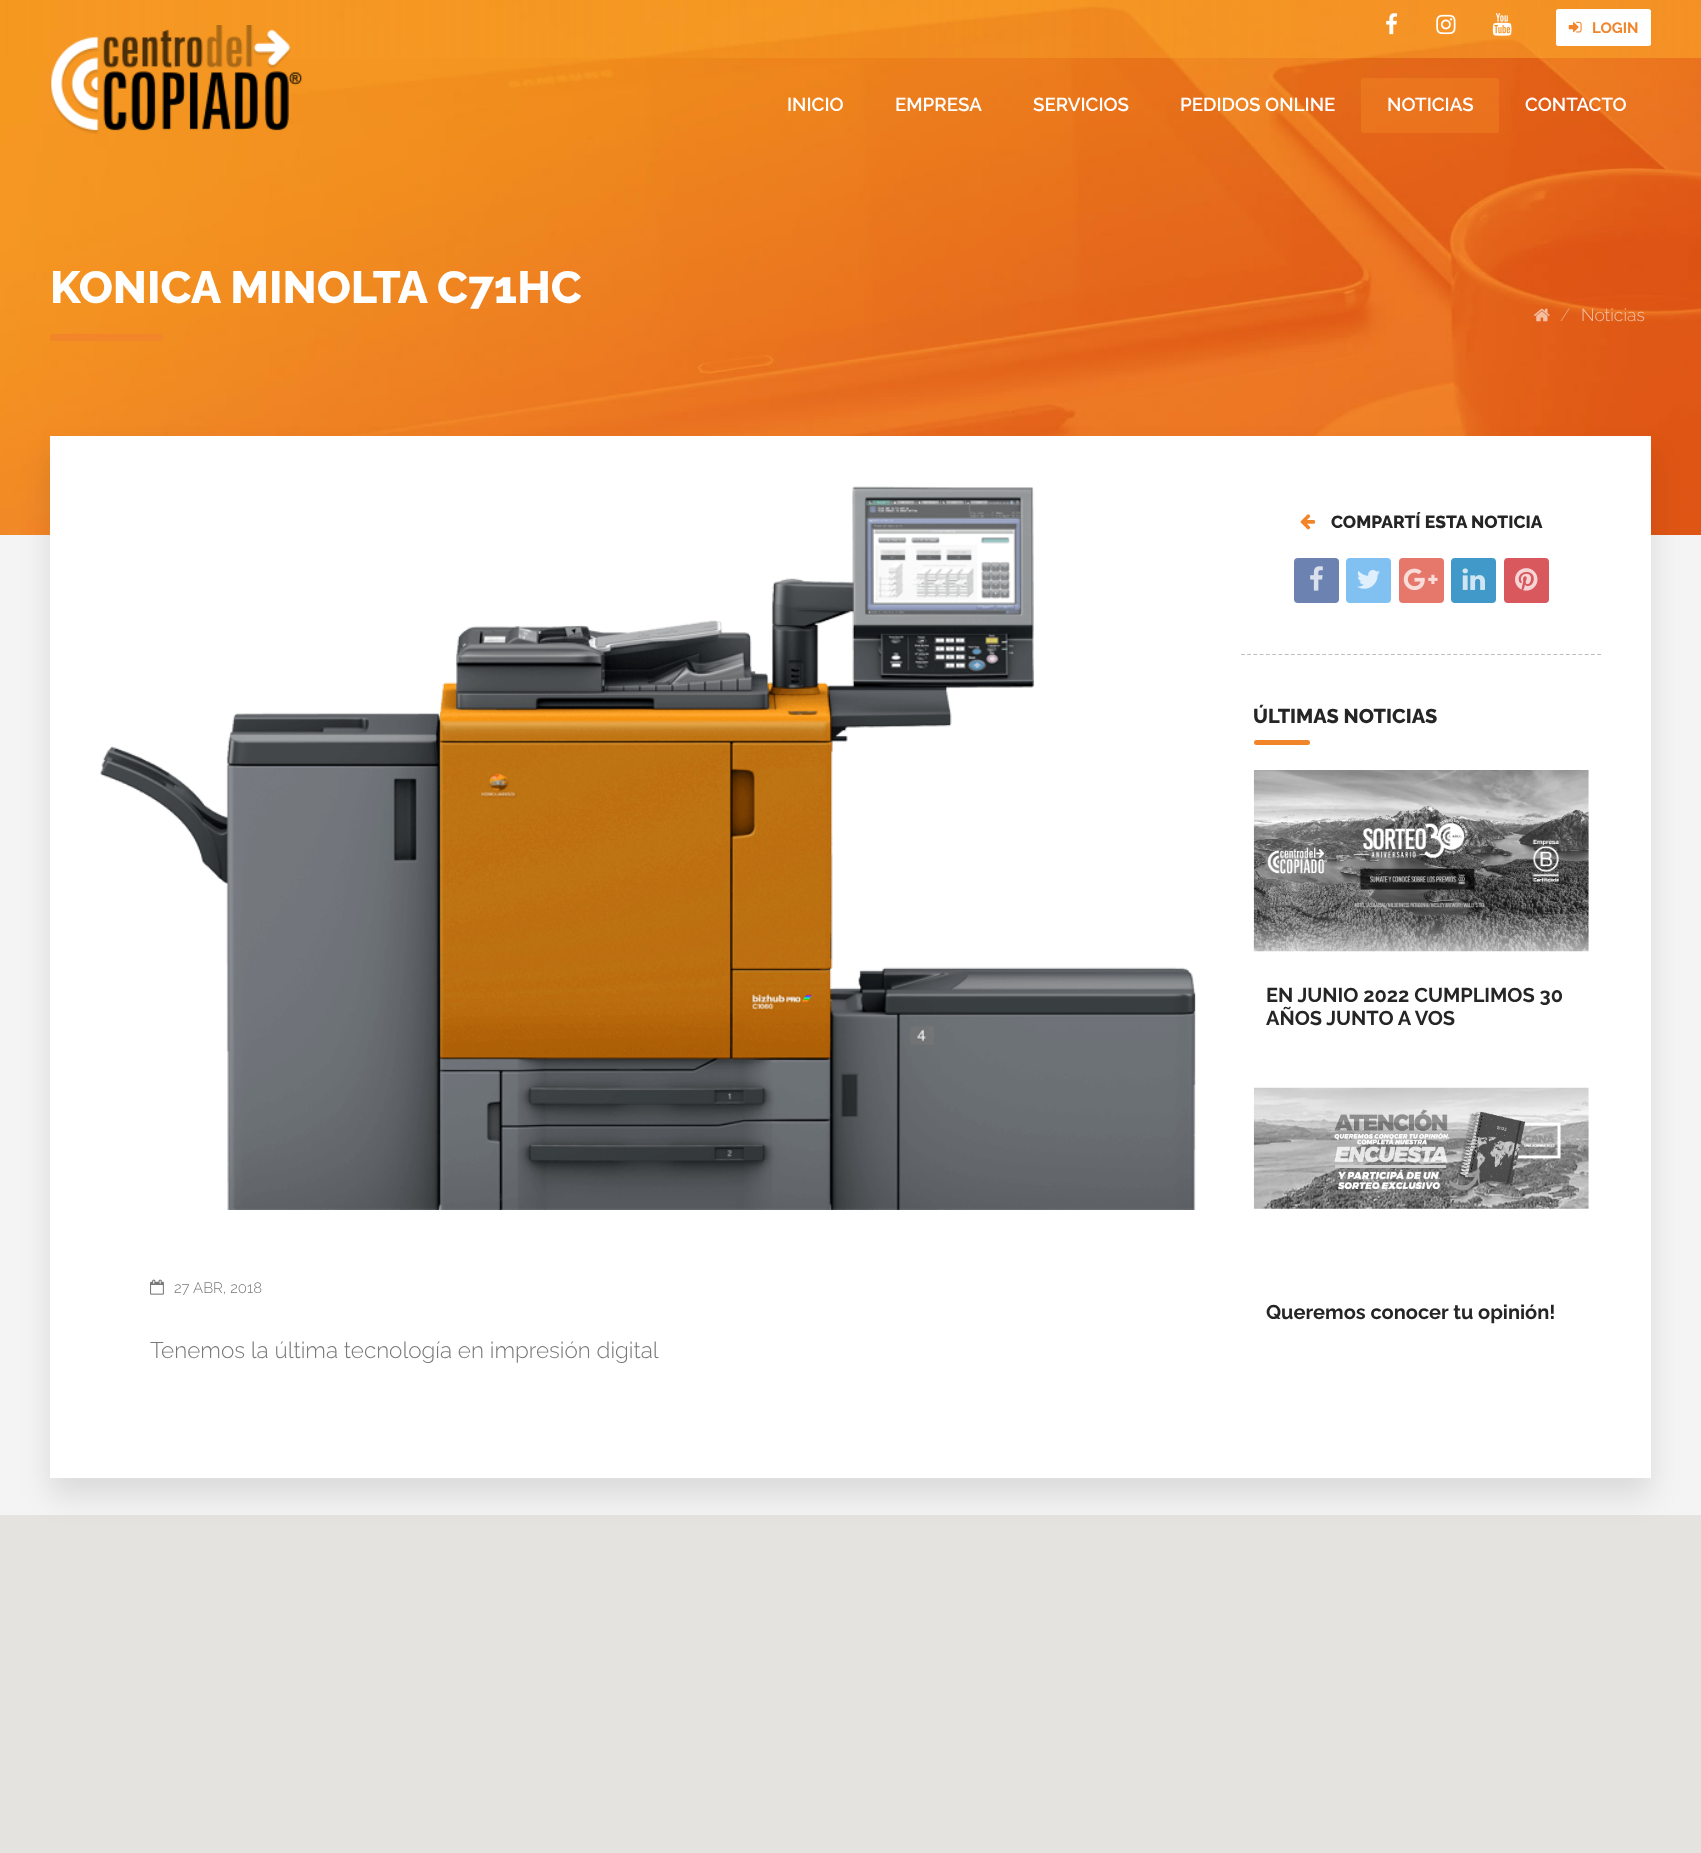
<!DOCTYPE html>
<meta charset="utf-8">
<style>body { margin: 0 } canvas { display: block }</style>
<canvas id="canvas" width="1701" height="1853"></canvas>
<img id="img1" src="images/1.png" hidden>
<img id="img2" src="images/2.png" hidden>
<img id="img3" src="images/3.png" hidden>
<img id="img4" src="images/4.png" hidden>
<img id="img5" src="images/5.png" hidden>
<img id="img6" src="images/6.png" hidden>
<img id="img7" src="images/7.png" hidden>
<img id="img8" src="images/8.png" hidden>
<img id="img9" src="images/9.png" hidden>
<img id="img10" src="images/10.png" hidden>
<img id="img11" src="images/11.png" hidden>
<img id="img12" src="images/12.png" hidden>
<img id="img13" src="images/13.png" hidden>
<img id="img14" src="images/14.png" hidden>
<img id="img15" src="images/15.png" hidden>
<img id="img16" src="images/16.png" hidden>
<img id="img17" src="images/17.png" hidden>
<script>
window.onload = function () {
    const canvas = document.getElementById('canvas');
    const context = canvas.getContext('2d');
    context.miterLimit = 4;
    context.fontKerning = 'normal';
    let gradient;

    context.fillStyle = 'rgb(255, 255, 255)';
    context.fillRect(0, 0, 1701, 1853);
    context.drawImage(document.getElementById('img1'), 0, 0, 1701, 535);
    context.drawImage(document.getElementById('img2'), 50, 25, 252, 109);
    context.drawImage(document.getElementById('img3'), 1386, 13, 12, 22);
    context.drawImage(document.getElementById('img4'), 1436, 14, 20, 21);
    context.drawImage(document.getElementById('img5'), 1492, 13, 20, 23);
    context.beginPath();
    context.roundRect(1556, 9, 95, 37, 2.5);
    context.fill();
    context.drawImage(document.getElementById('img6'), 1568, 21, 14, 12);
    context.fillStyle = 'rgba(242, 129, 36, 0.5)';
    context.beginPath();
    context.roundRect(1361, 78, 138, 55, 2.5);
    context.fill();
    context.fillStyle = 'rgb(242, 132, 41)';
    context.beginPath();
    context.roundRect(50, 334, 113, 7, 3.5);
    context.fill();
    context.drawImage(document.getElementById('img7'), 1534, 308, 16, 14);
    context.fillStyle = 'rgb(244, 244, 244)';
    context.fillRect(0, 535, 1701, 980);
    context.fillStyle = 'rgb(229, 227, 223)';
    context.fillRect(0, 1515, 1701, 338);
    context.fillStyle = 'rgba(0, 0, 0, 0.1)';
    context.filter = 'blur(15.5px)';
    context.beginPath();
    context.rect(50, 455, 1601, 1041);
    context.fill();
    context.filter = 'none';
    context.fillStyle = 'rgb(255, 255, 255)';
    context.fillRect(50, 436, 1601, 1042);
    context.drawImage(document.getElementById('img8'), 100, 486, 1096, 724);
    context.drawImage(document.getElementById('img9'), 150, 1279, 14, 16);
    context.beginPath();
    context.moveTo(1241, 654.5);
    context.lineTo(1601, 654.5);
    context.strokeStyle = 'rgb(189, 189, 189)';
    context.lineWidth = 1.2;
    context.setLineDash([3.75, 2.5]);
    context.stroke();
    context.drawImage(document.getElementById('img10'), 1300, 514, 15, 16);
    context.fillStyle = 'rgb(108, 131, 178)';
    context.beginPath();
    context.roundRect(1294, 558, 45, 45, 4);
    context.fill();
    context.drawImage(document.getElementById('img11'), 1310, 566, 13, 25);
    context.fillStyle = 'rgb(128, 193, 242)';
    context.beginPath();
    context.roundRect(1346, 558, 45, 45, 4);
    context.fill();
    context.drawImage(document.getElementById('img12'), 1357, 570, 23, 19);
    context.fillStyle = 'rgb(230, 120, 107)';
    context.beginPath();
    context.roundRect(1399, 558, 45, 45, 4);
    context.fill();
    context.drawImage(document.getElementById('img13'), 1403, 568, 35, 23);
    context.fillStyle = 'rgb(64, 153, 200)';
    context.beginPath();
    context.roundRect(1451, 558, 45, 45, 4);
    context.fill();
    context.drawImage(document.getElementById('img14'), 1462, 568, 23, 22);
    context.fillStyle = 'rgb(216, 88, 93)';
    context.beginPath();
    context.roundRect(1504, 558, 45, 45, 4);
    context.fill();
    context.drawImage(document.getElementById('img15'), 1515, 568, 23, 23);
    context.fillStyle = 'rgb(242, 132, 41)';
    context.beginPath();
    context.roundRect(1254, 740, 56, 5, 2.5);
    context.fill();
    context.drawImage(document.getElementById('img16'), 1253, 770, 336, 182);
    gradient = context.createLinearGradient(1421, 911, 1421, 971);
    gradient.addColorStop(0, 'rgba(255, 255, 255, 0)');
    gradient.addColorStop(1, 'rgb(255, 255, 255)');
    context.fillStyle = gradient;
    context.fillRect(1254, 912, 335, 40);
    context.drawImage(document.getElementById('img17'), 1253, 1087, 336, 122);
    context.font = 'bold 15px Raleway';
    context.fillStyle = 'rgb(242, 132, 41)';
    context.fillText('LOGIN', 1592, 33);
    context.font = '600 18.75px Raleway';
    context.fillStyle = 'rgb(255, 255, 255)';
    context.fillText('INICIO', 787, 111);
    context.fillText('EMPRESA', 895, 111);
    context.fillText('SERVICIOS', 1033, 111);
    context.fillText('PEDIDOS ONLINE', 1180, 111);
    context.fillText('NOTICIAS', 1387, 111);
    context.fillText('CONTACTO', 1525, 111);
    context.font = '800 45px Raleway';
    context.fillText('KONICA MINOLTA C71HC', 50, 303);
    context.font = '300 17.5px Raleway';
    context.fillStyle = 'rgb(238, 159, 116)';
    context.fillText('/', 1560, 321);
    context.fillStyle = 'rgb(244, 193, 164)';
    context.fillText('Noticias', 1581, 321);
    context.font = '300 15px Raleway';
    context.fillStyle = 'rgb(120, 120, 120)';
    context.fillText('27 ABR, 2018', 174, 1293);
    context.font = '300 22.5px Raleway';
    context.fillText('Tenemos la última tecnología en impresión digital', 150, 1358);
    context.font = '800 17.5px Raleway';
    context.fillStyle = 'rgb(37, 37, 37)';
    context.fillText('COMPARTÍ ESTA NOTICIA', 1331, 528);
    context.font = '800 20px Raleway';
    context.fillText('ÚLTIMAS NOTICIAS', 1253, 723);
    context.font = 'bold 20px Raleway';
    context.fillText('EN JUNIO 2022 CUMPLIMOS 30', 1266, 1002);
    context.fillText('AÑOS JUNTO A VOS', 1266, 1025);
    context.fillText('Queremos conocer tu opinión!', 1266, 1319);
};
</script>
